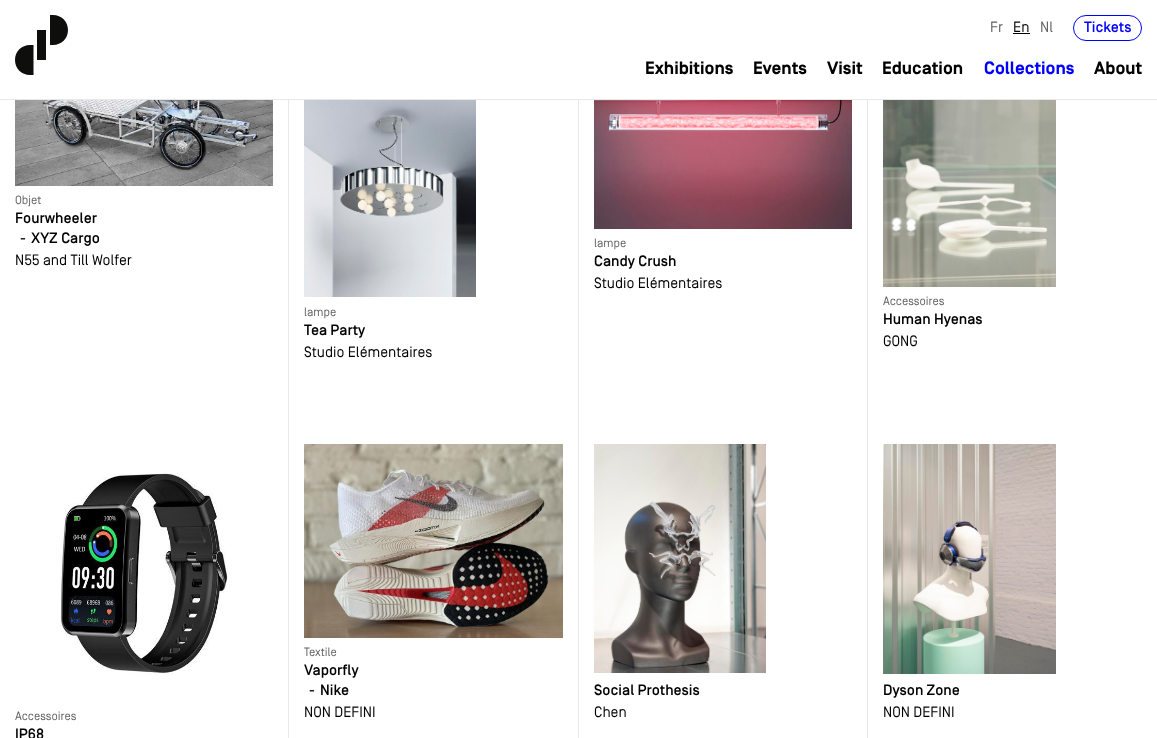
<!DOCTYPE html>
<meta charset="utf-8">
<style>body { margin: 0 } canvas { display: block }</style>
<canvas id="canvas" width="1157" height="738"></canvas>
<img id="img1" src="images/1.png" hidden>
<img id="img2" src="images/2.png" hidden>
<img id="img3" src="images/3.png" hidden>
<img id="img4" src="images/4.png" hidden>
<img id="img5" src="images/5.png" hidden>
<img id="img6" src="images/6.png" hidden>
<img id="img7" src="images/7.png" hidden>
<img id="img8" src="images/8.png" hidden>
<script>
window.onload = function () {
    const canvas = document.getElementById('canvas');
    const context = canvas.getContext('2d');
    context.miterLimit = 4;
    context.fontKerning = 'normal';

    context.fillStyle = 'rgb(255, 255, 255)';
    context.fillRect(0, 0, 1157, 738);
    context.fillStyle = 'rgb(232, 232, 232)';
    context.fillRect(0, 99, 1157, 1);
    context.fillStyle = 'rgb(14, 14, 13)';
    context.fillRect(37, 30, 9, 30);
    context.beginPath();
    context.moveTo(33.5, 45);
    context.lineTo(30, 45);
    context.bezierCurveTo(21.5, 45, 15, 51.5, 15, 60);
    context.bezierCurveTo(15, 68.5, 21.5, 75, 30, 75);
    context.lineTo(33.5, 75);
    context.closePath();
    context.moveTo(50, 45);
    context.lineTo(53, 45);
    context.bezierCurveTo(61.5, 45, 68, 38.5, 68, 30);
    context.bezierCurveTo(68, 21.5, 61.5, 15, 53, 15);
    context.lineTo(50, 15);
    context.closePath();
    context.fill();
    context.fillStyle = 'rgb(0, 0, 0)';
    context.fillRect(1013, 33, 17, 1);
    context.beginPath();
    context.roundRect(1073.5, 15.5, 68, 25, 12.5);
    context.strokeStyle = 'rgb(0, 0, 255)';
    context.stroke();
    context.fillStyle = 'rgb(232, 232, 232)';
    context.fillRect(288, 100, 1, 638);
    context.drawImage(document.getElementById('img1'), 15, 100, 258, 86);
    context.fillRect(867, 100, 1, 638);
    context.drawImage(document.getElementById('img2'), 594, 100, 258, 129);
    context.fillRect(578, 100, 1, 638);
    context.drawImage(document.getElementById('img3'), 304, 100, 172, 197);
    context.drawImage(document.getElementById('img4'), 883, 100, 173, 187);
    context.drawImage(document.getElementById('img5'), 304, 444, 259, 194);
    context.drawImage(document.getElementById('img6'), 594, 444, 172, 229);
    context.drawImage(document.getElementById('img7'), 883, 444, 173, 230);
    context.drawImage(document.getElementById('img8'), 60, 473, 170, 202);
    context.font = '15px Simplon';
    context.fillStyle = 'rgb(98, 98, 98)';
    context.fillText('Fr', 990, 32);
    context.fillStyle = 'rgb(0, 0, 0)';
    context.fillText('En', 1013, 32);
    context.fillStyle = 'rgb(98, 98, 98)';
    context.fillText('Nl', 1040, 32);
    context.font = '500 15px Simplon';
    context.fillStyle = 'rgb(0, 0, 255)';
    context.fillText('Tickets', 1084, 32);
    context.font = 'bold 18px Simplon';
    context.fillStyle = 'rgb(0, 0, 0)';
    context.fillText('Exhibitions', 645, 74);
    context.fillText('Events', 753, 74);
    context.fillText('Visit', 827, 74);
    context.fillText('Education', 882, 74);
    context.fillStyle = 'rgb(0, 0, 255)';
    context.fillText('Collections', 984, 74);
    context.fillStyle = 'rgb(0, 0, 0)';
    context.fillText('About', 1094, 74);
    context.font = '12px Simplon';
    context.fillStyle = 'rgb(98, 98, 98)';
    context.fillText('Objet', 15, 204);
    context.font = '500 15px Simplon';
    context.fillStyle = 'rgb(0, 0, 0)';
    context.fillText('Fourwheeler', 15, 223);
    context.fillText('-', 20, 243);
    context.fillText('XYZ Cargo', 31, 243);
    context.font = '15px Simplon';
    context.fillText('N55 and Till Wolfer', 15, 265);
    context.font = '12px Simplon';
    context.fillStyle = 'rgb(98, 98, 98)';
    context.fillText('lampe', 594, 247);
    context.font = '500 15px Simplon';
    context.fillStyle = 'rgb(0, 0, 0)';
    context.fillText('Candy Crush', 594, 266);
    context.font = '15px Simplon';
    context.fillText('Studio Elémentaires', 594, 288);
    context.font = '12px Simplon';
    context.fillStyle = 'rgb(98, 98, 98)';
    context.fillText('lampe', 304, 316);
    context.font = '500 15px Simplon';
    context.fillStyle = 'rgb(0, 0, 0)';
    context.fillText('Tea Party', 304, 335);
    context.font = '15px Simplon';
    context.fillText('Studio Elémentaires', 304, 357);
    context.font = '12px Simplon';
    context.fillStyle = 'rgb(98, 98, 98)';
    context.fillText('Accessoires', 883, 305);
    context.font = '500 15px Simplon';
    context.fillStyle = 'rgb(0, 0, 0)';
    context.fillText('Human Hyenas', 883, 324);
    context.font = '15px Simplon';
    context.fillText('GONG', 883, 346);
    context.font = '12px Simplon';
    context.fillStyle = 'rgb(98, 98, 98)';
    context.fillText('Textile', 304, 656);
    context.font = '500 15px Simplon';
    context.fillStyle = 'rgb(0, 0, 0)';
    context.fillText('Vaporfly', 304, 675);
    context.fillText('-', 309, 695);
    context.fillText('Nike', 320, 695);
    context.font = '15px Simplon';
    context.fillText('NON DEFINI', 304, 717);
    context.font = '500 15px Simplon';
    context.fillText('Social Prothesis', 594, 695);
    context.font = '15px Simplon';
    context.fillText('Chen', 594, 717);
    context.font = '500 15px Simplon';
    context.fillText('Dyson Zone', 883, 695);
    context.font = '15px Simplon';
    context.fillText('NON DEFINI', 883, 717);
    context.font = '12px Simplon';
    context.fillStyle = 'rgb(98, 98, 98)';
    context.fillText('Accessoires', 15, 720);
    context.font = '500 15px Simplon';
    context.fillStyle = 'rgb(0, 0, 0)';
    context.fillText('IP68', 15, 739);
};
</script>
